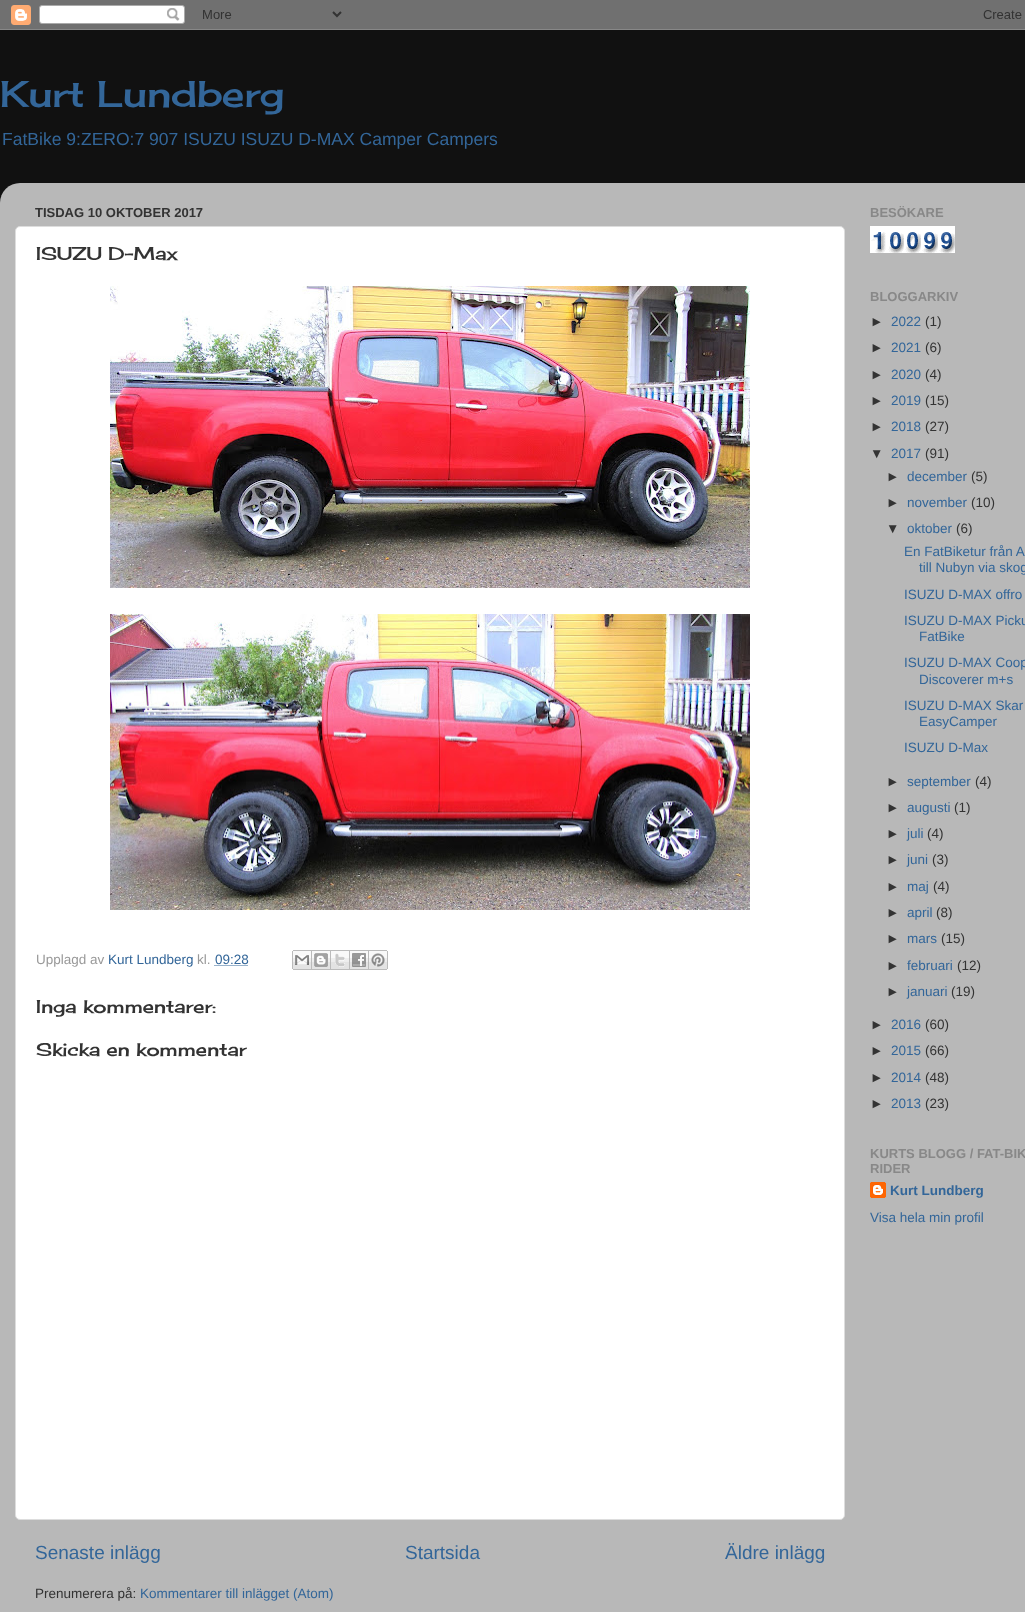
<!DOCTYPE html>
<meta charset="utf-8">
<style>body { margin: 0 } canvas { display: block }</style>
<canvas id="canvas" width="1025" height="1612"></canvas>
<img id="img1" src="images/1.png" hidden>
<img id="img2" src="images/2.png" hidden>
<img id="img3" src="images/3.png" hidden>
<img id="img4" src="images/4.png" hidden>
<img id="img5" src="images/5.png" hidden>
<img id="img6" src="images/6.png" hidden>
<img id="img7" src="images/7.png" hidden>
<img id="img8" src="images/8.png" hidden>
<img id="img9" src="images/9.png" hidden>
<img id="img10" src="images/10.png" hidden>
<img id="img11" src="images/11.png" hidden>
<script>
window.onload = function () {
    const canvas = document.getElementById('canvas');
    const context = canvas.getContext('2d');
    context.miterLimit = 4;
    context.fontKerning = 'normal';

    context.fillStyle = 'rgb(17, 17, 17)';
    context.fillRect(0, 0, 1025, 1612);
    context.drawImage(document.getElementById('img1'), 0, 0, 1025, 30);
    context.drawImage(document.getElementById('img2'), 0, 183, 1025, 1429);
    context.fillStyle = 'rgb(255, 255, 255)';
    context.beginPath();
    context.roundRect(15.5, 226.5, 829, 1293, 4.5);
    context.fill();
    context.strokeStyle = 'rgb(221, 221, 221)';
    context.stroke();
    context.drawImage(document.getElementById('img3'), 110, 286, 640, 302);
    context.drawImage(document.getElementById('img4'), 110, 614, 640, 296);
    context.beginPath();
    context.moveTo(214.5, 965.5);
    context.lineTo(248.5, 965.5);
    context.strokeStyle = 'rgb(51, 102, 153)';
    context.setLineDash([1, 1]);
    context.stroke();
    context.drawImage(document.getElementById('img5'), 292, 950, 20, 20);
    context.drawImage(document.getElementById('img6'), 312, 950, 19, 20);
    context.drawImage(document.getElementById('img7'), 331, 950, 19, 20);
    context.drawImage(document.getElementById('img8'), 350, 950, 19, 20);
    context.drawImage(document.getElementById('img9'), 369, 950, 19, 20);
    context.drawImage(document.getElementById('img10'), 870, 226, 85, 27);
    context.drawImage(document.getElementById('img11'), 870, 1182, 16, 16);
    context.font = '36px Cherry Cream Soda';
    context.fillStyle = 'rgb(51, 102, 153)';
    context.fillText('Kurt Lundberg', 0, 107);
    context.font = '17.55px Liberation Sans';
    context.fillText('FatBike 9:ZERO:7 907 ISUZU ISUZU D-MAX Camper Campers', 2, 145);
    context.font = 'bold 13px Liberation Sans';
    context.fillStyle = 'rgb(51, 51, 51)';
    context.fillText('TISDAG 10 OKTOBER 2017', 35, 217);
    context.font = '18px Cherry Cream Soda';
    context.fillText('ISUZU D-Max', 36, 260);
    context.font = '13.5px Liberation Sans';
    context.fillStyle = 'rgb(153, 153, 153)';
    context.fillText('Upplagd av', 36, 964);
    context.fillStyle = 'rgb(51, 102, 153)';
    context.fillText('Kurt Lundberg', 108, 964);
    context.fillStyle = 'rgb(153, 153, 153)';
    context.fillText('kl.', 197, 964);
    context.fillStyle = 'rgb(51, 102, 153)';
    context.fillText('09:28', 215, 964);
    context.font = '18px Cherry Cream Soda';
    context.fillStyle = 'rgb(51, 51, 51)';
    context.fillText('Inga kommentarer:', 36, 1013);
    context.fillText('Skicka en kommentar', 36, 1056);
    context.font = '19px Liberation Sans';
    context.fillStyle = 'rgb(51, 102, 153)';
    context.fillText('Senaste inlägg', 35, 1559);
    context.fillText('Startsida', 405, 1559);
    context.fillText('Äldre inlägg', 725, 1559);
    context.font = '13.5px Liberation Sans';
    context.fillStyle = 'rgb(51, 51, 51)';
    context.fillText('Prenumerera på:', 35, 1598);
    context.fillStyle = 'rgb(51, 102, 153)';
    context.fillText('Kommentarer till inlägget (Atom)', 140, 1598);
    context.font = 'bold 13px Liberation Sans';
    context.fillStyle = 'rgb(136, 136, 136)';
    context.fillText('BESÖKARE', 870, 217);
    context.fillText('BLOGGARKIV', 870, 301);
    context.font = '13.5px Liberation Sans';
    context.fillStyle = 'rgb(51, 51, 51)';
    context.fillText('►', 870, 326);
    context.fillStyle = 'rgb(51, 102, 153)';
    context.fillText('2022', 891, 326);
    context.fillStyle = 'rgb(51, 51, 51)';
    context.fillText('(1)', 925, 326);
    context.fillText('►', 870, 352);
    context.fillStyle = 'rgb(51, 102, 153)';
    context.fillText('2021', 891, 352);
    context.fillStyle = 'rgb(51, 51, 51)';
    context.fillText('(6)', 925, 352);
    context.fillText('►', 870, 379);
    context.fillStyle = 'rgb(51, 102, 153)';
    context.fillText('2020', 891, 379);
    context.fillStyle = 'rgb(51, 51, 51)';
    context.fillText('(4)', 925, 379);
    context.fillText('►', 870, 405);
    context.fillStyle = 'rgb(51, 102, 153)';
    context.fillText('2019', 891, 405);
    context.fillStyle = 'rgb(51, 51, 51)';
    context.fillText('(15)', 925, 405);
    context.fillText('►', 870, 431);
    context.fillStyle = 'rgb(51, 102, 153)';
    context.fillText('2018', 891, 431);
    context.fillStyle = 'rgb(51, 51, 51)';
    context.fillText('(27)', 925, 431);
    context.fillText('▼', 870, 458);
    context.fillStyle = 'rgb(51, 102, 153)';
    context.fillText('2017', 891, 458);
    context.fillStyle = 'rgb(51, 51, 51)';
    context.fillText('(91)', 925, 458);
    context.fillText('►', 886, 481);
    context.fillStyle = 'rgb(51, 102, 153)';
    context.fillText('december', 907, 481);
    context.fillStyle = 'rgb(51, 51, 51)';
    context.fillText('(5)', 971, 481);
    context.fillText('►', 886, 507);
    context.fillStyle = 'rgb(51, 102, 153)';
    context.fillText('november', 907, 507);
    context.fillStyle = 'rgb(51, 51, 51)';
    context.fillText('(10)', 971, 507);
    context.fillText('▼', 886, 533);
    context.fillStyle = 'rgb(51, 102, 153)';
    context.fillText('oktober', 907, 533);
    context.fillStyle = 'rgb(51, 51, 51)';
    context.fillText('(6)', 956, 533);
    context.fillStyle = 'rgb(51, 102, 153)';
    context.fillText('En FatBiketur från A', 904, 556);
    context.fillText('till Nubyn via skog', 919, 572);
    context.fillText('ISUZU D-MAX offro', 904, 599);
    context.fillText('ISUZU D-MAX Picku', 904, 625);
    context.fillText('FatBike', 919, 641);
    context.fillText('ISUZU D-MAX Coop', 904, 667);
    context.fillText('Discoverer m+s', 919, 684);
    context.fillText('ISUZU D-MAX Skar', 904, 710);
    context.fillText('EasyCamper', 919, 726);
    context.fillText('ISUZU D-Max', 904, 752);
    context.fillStyle = 'rgb(51, 51, 51)';
    context.fillText('►', 886, 786);
    context.fillStyle = 'rgb(51, 102, 153)';
    context.fillText('september', 907, 786);
    context.fillStyle = 'rgb(51, 51, 51)';
    context.fillText('(4)', 975, 786);
    context.fillText('►', 886, 812);
    context.fillStyle = 'rgb(51, 102, 153)';
    context.fillText('augusti', 907, 812);
    context.fillStyle = 'rgb(51, 51, 51)';
    context.fillText('(1)', 954, 812);
    context.fillText('►', 886, 838);
    context.fillStyle = 'rgb(51, 102, 153)';
    context.fillText('juli', 907, 838);
    context.fillStyle = 'rgb(51, 51, 51)';
    context.fillText('(4)', 927, 838);
    context.fillText('►', 886, 864);
    context.fillStyle = 'rgb(51, 102, 153)';
    context.fillText('juni', 907, 864);
    context.fillStyle = 'rgb(51, 51, 51)';
    context.fillText('(3)', 932, 864);
    context.fillText('►', 886, 891);
    context.fillStyle = 'rgb(51, 102, 153)';
    context.fillText('maj', 907, 891);
    context.fillStyle = 'rgb(51, 51, 51)';
    context.fillText('(4)', 933, 891);
    context.fillText('►', 886, 917);
    context.fillStyle = 'rgb(51, 102, 153)';
    context.fillText('april', 907, 917);
    context.fillStyle = 'rgb(51, 51, 51)';
    context.fillText('(8)', 936, 917);
    context.fillText('►', 886, 943);
    context.fillStyle = 'rgb(51, 102, 153)';
    context.fillText('mars', 907, 943);
    context.fillStyle = 'rgb(51, 51, 51)';
    context.fillText('(15)', 941, 943);
    context.fillText('►', 886, 970);
    context.fillStyle = 'rgb(51, 102, 153)';
    context.fillText('februari', 907, 970);
    context.fillStyle = 'rgb(51, 51, 51)';
    context.fillText('(12)', 957, 970);
    context.fillText('►', 886, 996);
    context.fillStyle = 'rgb(51, 102, 153)';
    context.fillText('januari', 907, 996);
    context.fillStyle = 'rgb(51, 51, 51)';
    context.fillText('(19)', 951, 996);
    context.fillText('►', 870, 1029);
    context.fillStyle = 'rgb(51, 102, 153)';
    context.fillText('2016', 891, 1029);
    context.fillStyle = 'rgb(51, 51, 51)';
    context.fillText('(60)', 925, 1029);
    context.fillText('►', 870, 1055);
    context.fillStyle = 'rgb(51, 102, 153)';
    context.fillText('2015', 891, 1055);
    context.fillStyle = 'rgb(51, 51, 51)';
    context.fillText('(66)', 925, 1055);
    context.fillText('►', 870, 1082);
    context.fillStyle = 'rgb(51, 102, 153)';
    context.fillText('2014', 891, 1082);
    context.fillStyle = 'rgb(51, 51, 51)';
    context.fillText('(48)', 925, 1082);
    context.fillText('►', 870, 1108);
    context.fillStyle = 'rgb(51, 102, 153)';
    context.fillText('2013', 891, 1108);
    context.fillStyle = 'rgb(51, 51, 51)';
    context.fillText('(23)', 925, 1108);
    context.font = 'bold 13px Liberation Sans';
    context.fillStyle = 'rgb(136, 136, 136)';
    context.fillText('KURTS BLOGG / FAT-BIK', 870, 1158);
    context.fillText('RIDER', 870, 1173);
    context.font = 'bold 13.5px Liberation Sans';
    context.fillStyle = 'rgb(51, 102, 153)';
    context.fillText('Kurt Lundberg', 890, 1195);
    context.font = '13.5px Liberation Sans';
    context.fillText('Visa hela min profil', 870, 1222);
};
</script>
